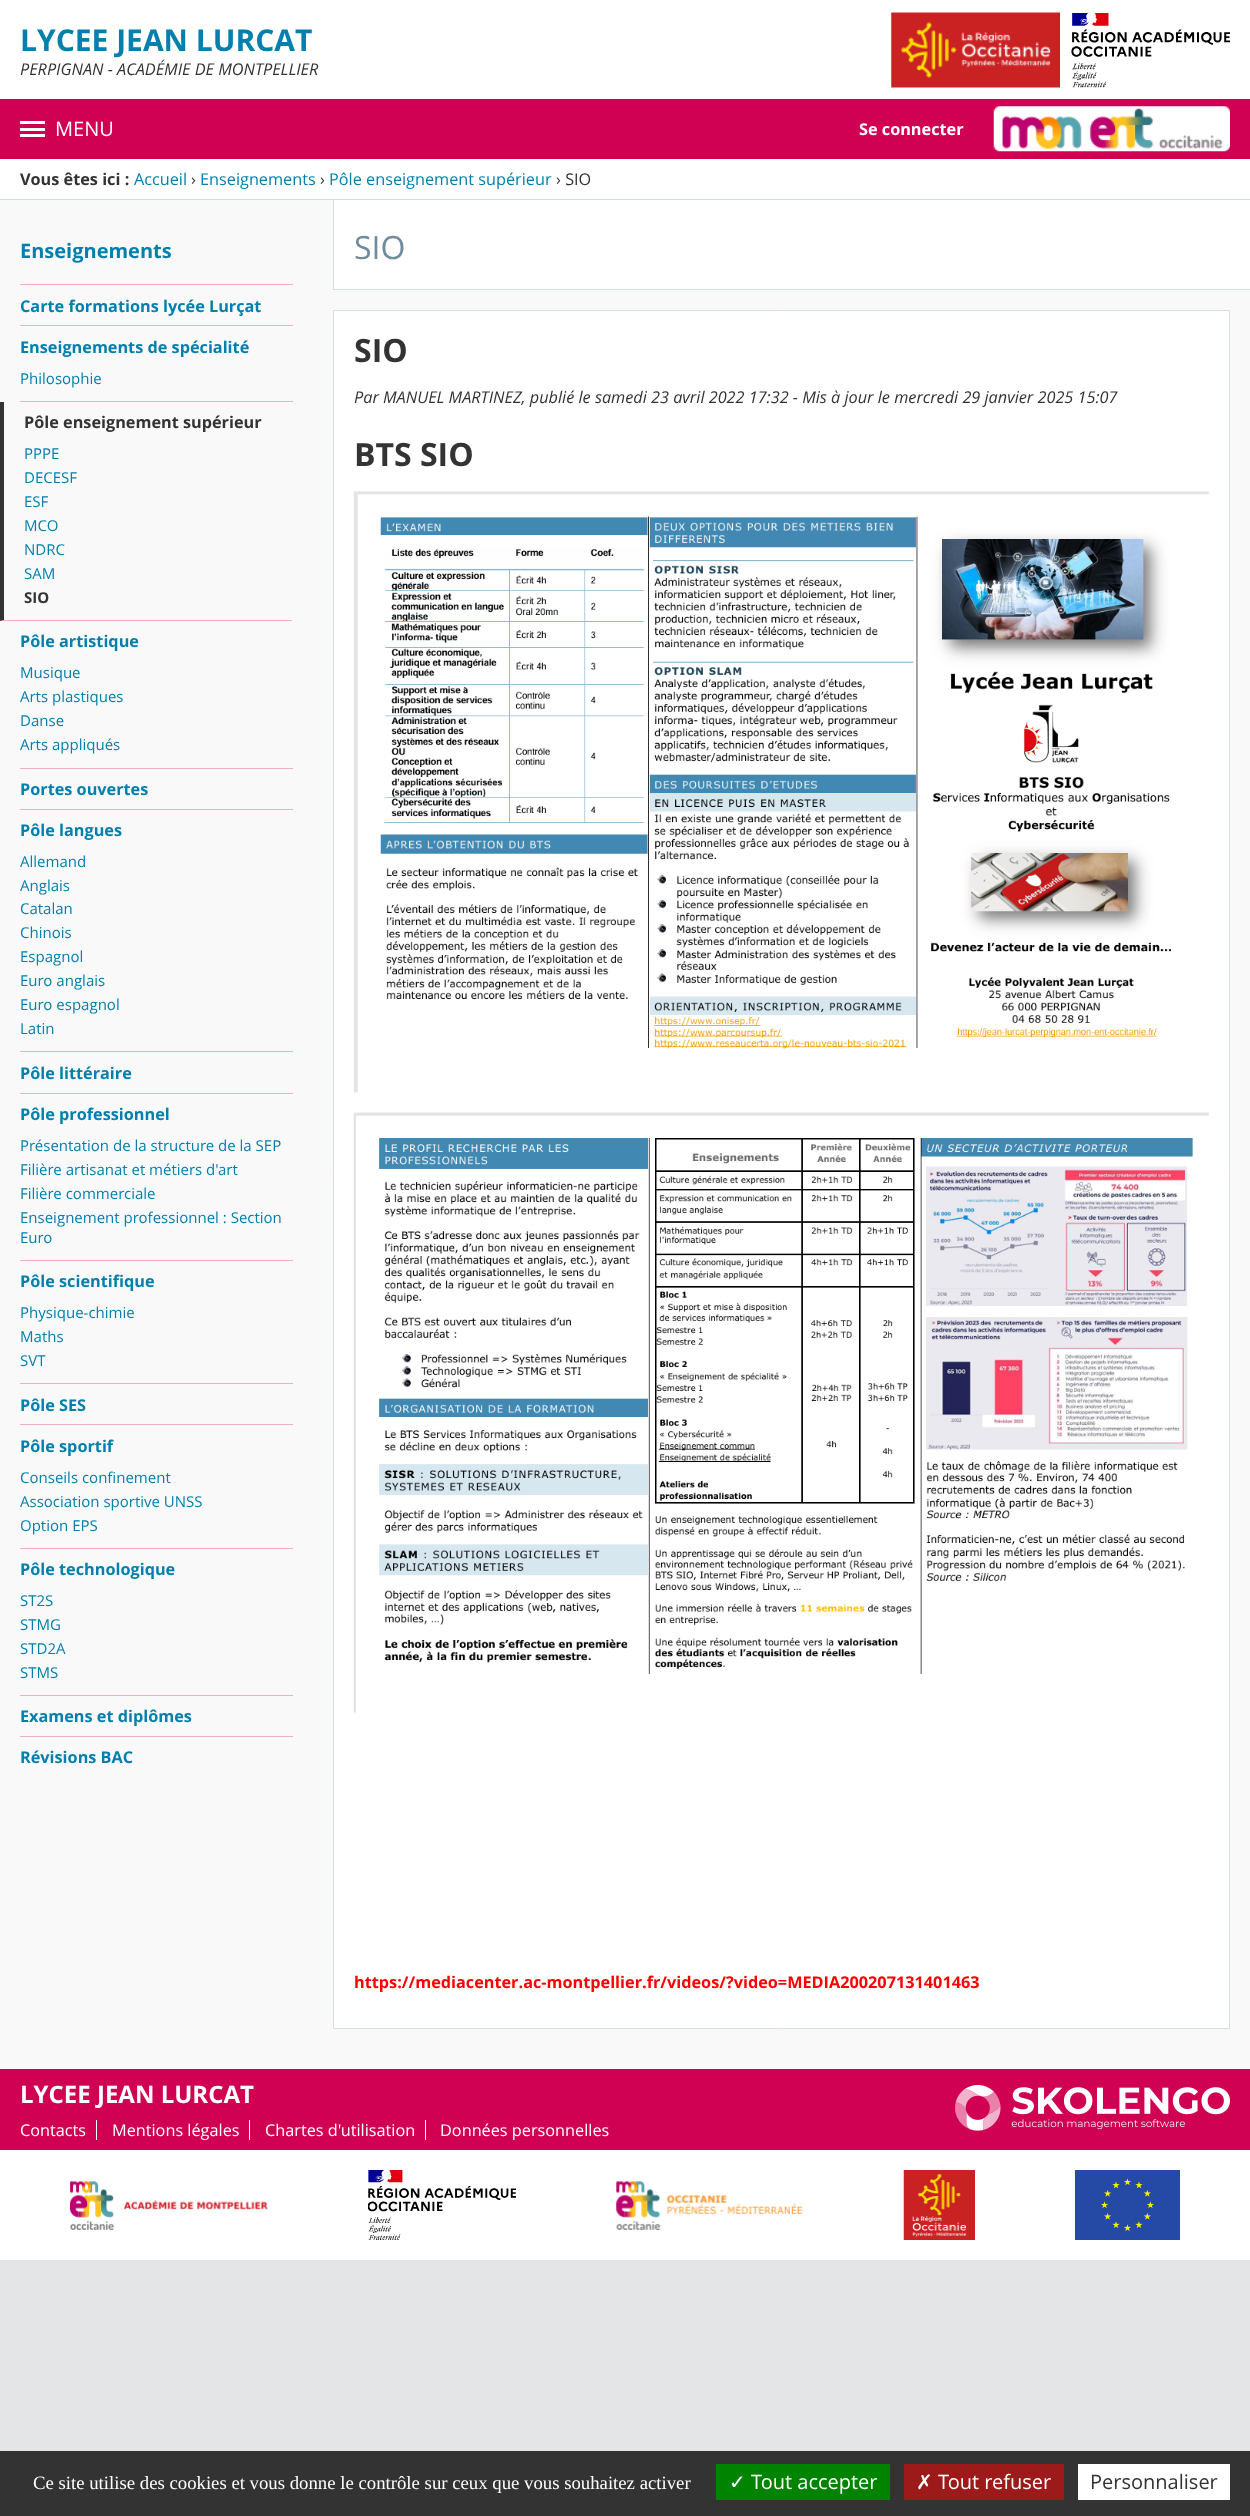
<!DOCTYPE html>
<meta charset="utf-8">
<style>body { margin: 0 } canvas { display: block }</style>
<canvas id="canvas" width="1250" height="2516"></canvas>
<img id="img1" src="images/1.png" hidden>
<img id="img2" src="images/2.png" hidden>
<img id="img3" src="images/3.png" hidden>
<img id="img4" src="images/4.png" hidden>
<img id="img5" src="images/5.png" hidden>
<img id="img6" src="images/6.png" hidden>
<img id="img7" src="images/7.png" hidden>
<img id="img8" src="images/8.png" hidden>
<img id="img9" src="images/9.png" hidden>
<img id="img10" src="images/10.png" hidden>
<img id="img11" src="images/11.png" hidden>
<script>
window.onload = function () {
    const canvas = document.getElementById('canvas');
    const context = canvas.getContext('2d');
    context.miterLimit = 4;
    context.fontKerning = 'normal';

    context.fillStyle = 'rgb(228, 229, 231)';
    context.fillRect(0, 0, 1250, 2516);
    context.fillStyle = 'rgb(255, 255, 255)';
    context.fillRect(0, 0, 1250, 2260);
    context.drawImage(document.getElementById('img1'), 891, 12, 169, 76);
    context.drawImage(document.getElementById('img2'), 1071, 13, 159, 75);
    context.fillStyle = 'rgb(208, 0, 83)';
    context.fillRect(0, 99, 1250, 60);
    context.fillStyle = 'rgb(255, 255, 255)';
    context.fillRect(20, 121, 25, 3);
    context.fillRect(20, 128, 25, 3);
    context.fillRect(20, 134, 25, 3);
    context.drawImage(document.getElementById('img3'), 993, 106, 237, 46);
    context.fillStyle = 'rgb(215, 222, 226)';
    context.fillRect(0, 199, 1250, 1);
    context.fillStyle = 'rgb(249, 249, 249)';
    context.fillRect(0, 200, 1250, 1869);
    context.fillStyle = 'rgb(237, 174, 199)';
    context.fillRect(20, 284, 273, 1);
    context.fillRect(20, 325, 273, 1);
    context.fillRect(20, 401, 273, 1);
    context.beginPath();
    context.moveTo(292, 621);
    context.lineTo(0, 621);
    context.lineTo(4, 620);
    context.lineTo(292, 620);
    context.closePath();
    context.fill();
    context.fillStyle = 'rgb(51, 51, 51)';
    context.beginPath();
    context.moveTo(0, 621);
    context.lineTo(0, 402);
    context.lineTo(4, 402);
    context.lineTo(4, 620);
    context.closePath();
    context.fill();
    context.fillStyle = 'rgb(237, 174, 199)';
    context.fillRect(20, 768, 273, 1);
    context.fillRect(20, 809, 273, 1);
    context.fillRect(20, 1051, 273, 1);
    context.fillRect(20, 1093, 273, 1);
    context.fillRect(20, 1260, 273, 1);
    context.fillRect(20, 1383, 273, 1);
    context.fillRect(20, 1424, 273, 1);
    context.fillRect(20, 1548, 273, 1);
    context.fillRect(20, 1695, 273, 1);
    context.fillRect(20, 1736, 273, 1);
    context.fillStyle = 'rgb(255, 255, 255)';
    context.fillRect(334, 200, 916, 89);
    context.fillStyle = 'rgb(215, 222, 226)';
    context.fillRect(333, 289, 917, 1);
    context.fillRect(333, 200, 1, 90);
    context.fillStyle = 'rgb(255, 255, 255)';
    context.beginPath();
    context.rect(333.5, 310.5, 896, 1718);
    context.fill();
    context.strokeStyle = 'rgb(215, 222, 226)';
    context.stroke();
    context.drawImage(document.getElementById('img4'), 353, 491, 856, 602);
    context.drawImage(document.getElementById('img5'), 353, 1112, 856, 601);
    context.fillStyle = 'rgb(208, 0, 83)';
    context.fillRect(0, 2069, 1250, 81);
    context.fillStyle = 'rgb(255, 255, 255)';
    context.fillRect(96, 2120, 1, 20);
    context.fillRect(249, 2120, 1, 20);
    context.fillRect(425, 2120, 1, 20);
    context.drawImage(document.getElementById('img6'), 955, 2085, 275, 46);
    context.drawImage(document.getElementById('img7'), 70, 2181, 198, 49);
    context.drawImage(document.getElementById('img8'), 368, 2170, 148, 70);
    context.drawImage(document.getElementById('img9'), 616, 2181, 187, 49);
    context.drawImage(document.getElementById('img10'), 903, 2170, 72, 70);
    context.drawImage(document.getElementById('img11'), 1075, 2170, 105, 70);
    context.fillStyle = 'rgb(51, 51, 51)';
    context.fillRect(0, 2451, 1250, 65);
    context.fillStyle = 'rgb(0, 131, 0)';
    context.fillRect(716, 2464, 174, 36);
    context.fillStyle = 'rgb(156, 26, 26)';
    context.fillRect(904, 2464, 160, 36);
    context.fillStyle = 'rgb(255, 255, 255)';
    context.fillRect(1078, 2464, 152, 36);
    context.font = 'bold 30px Open Sans';
    context.fillStyle = 'rgb(1, 127, 173)';
    context.fillText('LYCEE JEAN LURCAT', 20, 51);
    context.font = 'italic 16.25px Open Sans';
    context.fillStyle = 'rgb(51, 51, 51)';
    context.fillText('PERPIGNAN - ACADÉMIE DE MONTPELLIER', 20, 75);
    context.font = '20px Open Sans';
    context.fillStyle = 'rgb(255, 255, 255)';
    context.fillText('MENU', 55, 136);
    context.font = 'bold 16.25px Open Sans';
    context.fillText('Se connecter', 859, 135);
    context.fillStyle = 'rgb(51, 51, 51)';
    context.fillText('Vous êtes ici :', 20, 185);
    context.font = '16.25px Open Sans';
    context.fillStyle = 'rgb(1, 127, 173)';
    context.fillText('Accueil', 134, 185);
    context.fillStyle = 'rgb(51, 51, 51)';
    context.fillText('›', 191, 185);
    context.fillStyle = 'rgb(1, 127, 173)';
    context.fillText('Enseignements', 200, 185);
    context.fillStyle = 'rgb(51, 51, 51)';
    context.fillText('›', 320, 185);
    context.fillStyle = 'rgb(1, 127, 173)';
    context.fillText('Pôle enseignement supérieur', 329, 185);
    context.fillStyle = 'rgb(51, 51, 51)';
    context.fillText('› SIO', 556, 185);
    context.font = 'bold 20px Open Sans';
    context.fillStyle = 'rgb(1, 127, 173)';
    context.fillText('Enseignements', 20, 258);
    context.font = 'bold 16.25px Open Sans';
    context.fillText('Carte formations lycée Lurçat', 20, 312);
    context.fillText('Enseignements de spécialité', 20, 353);
    context.font = '15px Open Sans';
    context.fillText('Philosophie', 20, 384);
    context.font = 'bold 16.25px Open Sans';
    context.fillStyle = 'rgb(51, 51, 51)';
    context.fillText('Pôle enseignement supérieur', 24, 428);
    context.font = '15px Open Sans';
    context.fillStyle = 'rgb(1, 127, 173)';
    context.fillText('PPPE', 24, 459);
    context.fillText('DECESF', 24, 483);
    context.fillText('ESF', 24, 507);
    context.fillText('MCO', 24, 531);
    context.fillText('NDRC', 24, 555);
    context.fillText('SAM', 24, 579);
    context.font = 'bold 15px Open Sans';
    context.fillStyle = 'rgb(51, 51, 51)';
    context.fillText('SIO', 24, 603);
    context.font = 'bold 16.25px Open Sans';
    context.fillStyle = 'rgb(1, 127, 173)';
    context.fillText('Pôle artistique', 20, 647);
    context.font = '15px Open Sans';
    context.fillText('Musique', 20, 678);
    context.fillText('Arts plastiques', 20, 702);
    context.fillText('Danse', 20, 726);
    context.fillText('Arts appliqués', 20, 750);
    context.font = 'bold 16.25px Open Sans';
    context.fillText('Portes ouvertes', 20, 795);
    context.fillText('Pôle langues', 20, 836);
    context.font = '15px Open Sans';
    context.fillText('Allemand', 20, 867);
    context.fillText('Anglais', 20, 891);
    context.fillText('Catalan', 20, 914);
    context.fillText('Chinois', 20, 938);
    context.fillText('Espagnol', 20, 962);
    context.fillText('Euro anglais', 20, 986);
    context.fillText('Euro espagnol', 20, 1010);
    context.fillText('Latin', 20, 1034);
    context.font = 'bold 16.25px Open Sans';
    context.fillText('Pôle littéraire', 20, 1079);
    context.fillText('Pôle professionnel', 20, 1120);
    context.font = '15px Open Sans';
    context.fillText('Présentation de la structure de la SEP', 20, 1151);
    context.fillText('Filière artisanat et métiers d\'art', 20, 1175);
    context.fillText('Filière commerciale', 20, 1199);
    context.fillText('Enseignement professionnel : Section', 20, 1223);
    context.fillText('Euro', 20, 1243);
    context.font = 'bold 16.25px Open Sans';
    context.fillText('Pôle scientifique', 20, 1287);
    context.font = '15px Open Sans';
    context.fillText('Physique-chimie', 20, 1318);
    context.fillText('Maths', 20, 1342);
    context.fillText('SVT', 20, 1366);
    context.font = 'bold 16.25px Open Sans';
    context.fillText('Pôle SES', 20, 1411);
    context.fillText('Pôle sportif', 20, 1452);
    context.font = '15px Open Sans';
    context.fillText('Conseils confinement', 20, 1483);
    context.fillText('Association sportive UNSS', 20, 1507);
    context.fillText('Option EPS', 20, 1531);
    context.font = 'bold 16.25px Open Sans';
    context.fillText('Pôle technologique', 20, 1575);
    context.font = '15px Open Sans';
    context.fillText('ST2S', 20, 1606);
    context.fillText('STMG', 20, 1630);
    context.fillText('STD2A', 20, 1654);
    context.fillText('STMS', 20, 1678);
    context.font = 'bold 16.25px Open Sans';
    context.fillText('Examens et diplômes', 20, 1722);
    context.fillText('Révisions BAC', 20, 1763);
    context.font = '32px Open Sans';
    context.fillStyle = 'rgb(112, 140, 154)';
    context.fillText('SIO', 354, 259);
    context.font = 'bold 32px Open Sans';
    context.fillStyle = 'rgb(51, 51, 51)';
    context.fillText('SIO', 354, 362);
    context.font = 'italic 16.25px Open Sans';
    context.fillText('Par MANUEL MARTINEZ, publié le samedi 23 avril 2022 17:32 - Mis à jour le mercredi 29 janvier 2025 15:07', 354, 403);
    context.font = 'bold 32px Open Sans';
    context.fillText('BTS SIO', 354, 466);
    context.font = 'bold 16.25px Open Sans';
    context.fillStyle = 'rgb(255, 0, 0)';
    context.fillText('https://mediacenter.ac-montpellier.fr/videos/?video=MEDIA200207131401463', 354, 1988);
    context.font = 'bold 24px Open Sans';
    context.fillStyle = 'rgb(255, 255, 255)';
    context.fillText('LYCEE JEAN LURCAT', 20, 2103);
    context.font = '16.25px Open Sans';
    context.fillText('Contacts', 20, 2136);
    context.fillText('Mentions légales', 112, 2136);
    context.fillText('Chartes d\'utilisation', 265, 2136);
    context.fillText('Données personnelles', 440, 2136);
    context.font = '18.75px Liberation Serif';
    context.fillText('Ce site utilise des cookies et vous donne le contrôle sur ceux que vous souhaitez activer', 33, 2489);
    context.font = '20px DejaVu Sans';
    context.fillText('✓', 729, 2489);
    context.font = '20px Open Sans';
    context.fillText('Tout accepter', 751, 2489);
    context.font = '20px DejaVu Sans';
    context.fillText('✗', 916, 2489);
    context.font = '20px Open Sans';
    context.fillText('Tout refuser', 938, 2489);
    context.fillStyle = 'rgb(51, 51, 51)';
    context.fillText('Personnaliser', 1090, 2489);
};
</script>
